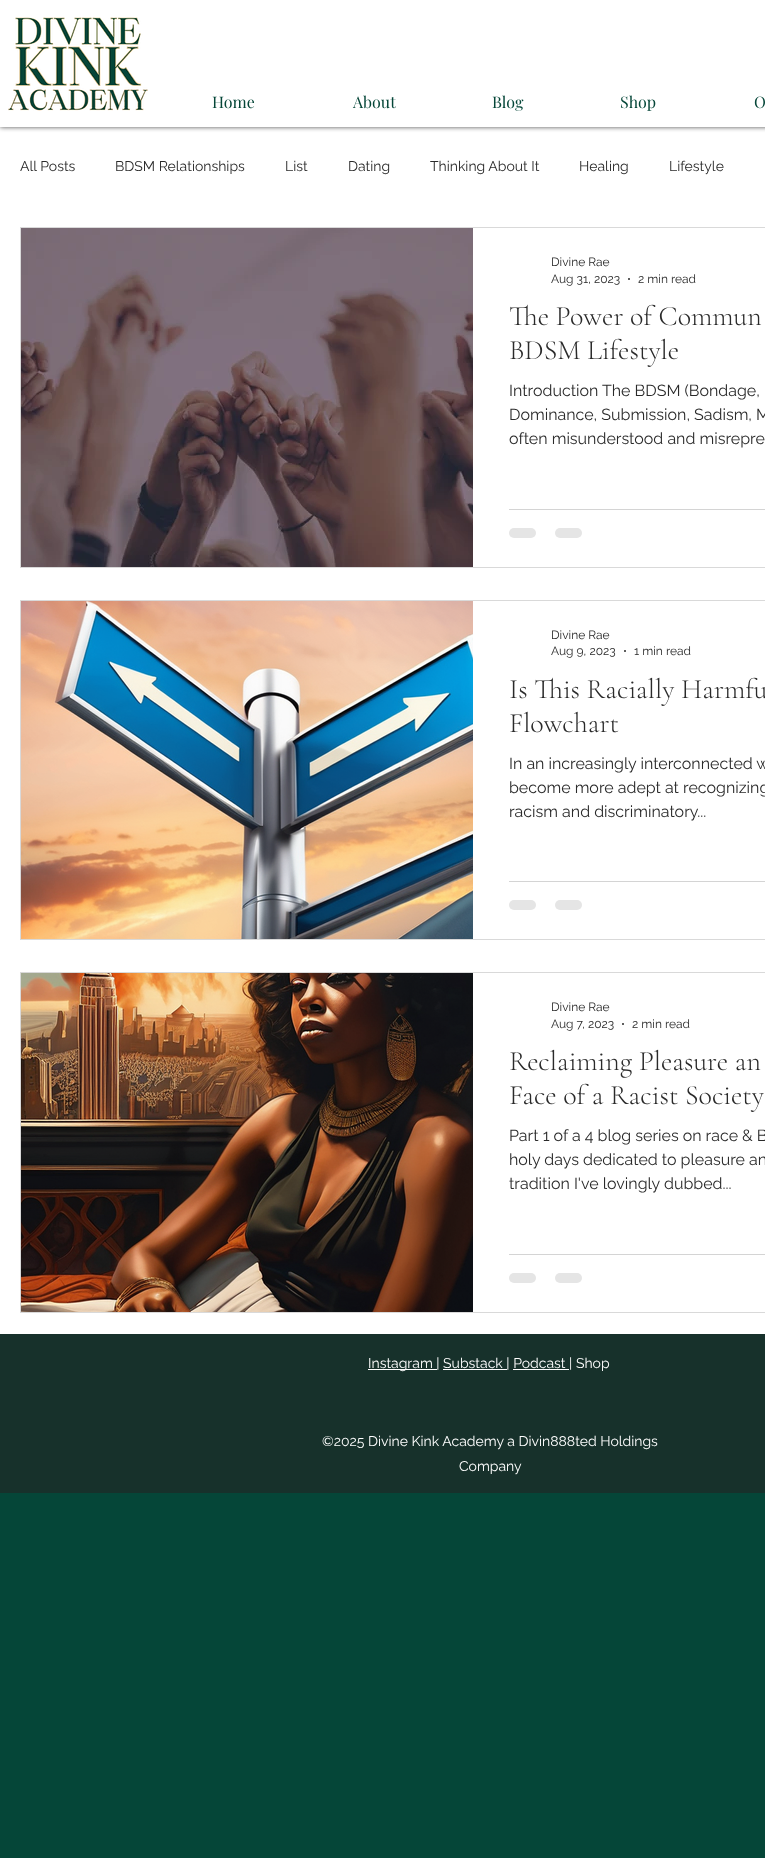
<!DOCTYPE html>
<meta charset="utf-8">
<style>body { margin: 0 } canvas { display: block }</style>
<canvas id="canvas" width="765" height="1858"></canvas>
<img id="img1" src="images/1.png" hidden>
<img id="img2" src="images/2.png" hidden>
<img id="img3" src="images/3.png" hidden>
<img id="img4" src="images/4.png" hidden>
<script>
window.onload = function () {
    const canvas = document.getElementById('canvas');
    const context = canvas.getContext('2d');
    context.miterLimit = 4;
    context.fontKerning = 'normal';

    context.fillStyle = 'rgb(5, 70, 56)';
    context.fillRect(0, 0, 765, 1858);
    context.fillStyle = 'rgb(255, 255, 255)';
    context.fillRect(0, 127, 765, 1207);
    context.fillStyle = 'rgba(0, 0, 0, 0.7)';
    context.filter = 'blur(2.5px)';
    context.beginPath();
    context.rect(0, 0, 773, 127);
    context.fill();
    context.filter = 'none';
    context.fillStyle = 'rgb(255, 255, 255)';
    context.fillRect(0, 0, 765, 127);
    context.drawImage(document.getElementById('img1'), 8, 17, 140, 94);
    context.strokeStyle = 'rgb(217, 217, 217)';
    context.strokeRect(20.5, 227.5, 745, 340);
    context.drawImage(document.getElementById('img2'), 21, 228, 452, 339);
    context.fillStyle = 'rgb(42, 42, 42)';
    context.beginPath();
    context.arc(629, 279, 1, 0, 2 * Math.PI);
    context.fill();
    context.fillStyle = 'rgb(212, 212, 212)';
    context.fillRect(509, 509, 256, 1);
    context.fillStyle = 'rgb(229, 229, 229)';
    context.beginPath();
    context.roundRect(509, 528, 27, 10, 5);
    context.fill();
    context.beginPath();
    context.roundRect(555, 528, 27, 10, 5);
    context.fill();
    context.strokeRect(20.5, 600.5, 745, 339);
    context.drawImage(document.getElementById('img3'), 21, 601, 452, 338);
    context.fillStyle = 'rgb(42, 42, 42)';
    context.beginPath();
    context.arc(625, 651, 1, 0, 2 * Math.PI);
    context.fill();
    context.fillStyle = 'rgb(212, 212, 212)';
    context.fillRect(509, 881, 256, 1);
    context.fillStyle = 'rgb(229, 229, 229)';
    context.beginPath();
    context.roundRect(509, 900, 27, 10, 5);
    context.fill();
    context.beginPath();
    context.roundRect(555, 900, 27, 10, 5);
    context.fill();
    context.strokeRect(20.5, 972.5, 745, 340);
    context.drawImage(document.getElementById('img4'), 21, 973, 452, 339);
    context.fillStyle = 'rgb(42, 42, 42)';
    context.beginPath();
    context.arc(623, 1024, 1, 0, 2 * Math.PI);
    context.fill();
    context.fillStyle = 'rgb(212, 212, 212)';
    context.fillRect(509, 1254, 256, 1);
    context.fillStyle = 'rgb(229, 229, 229)';
    context.beginPath();
    context.roundRect(509, 1273, 27, 10, 5);
    context.fill();
    context.beginPath();
    context.roundRect(555, 1273, 27, 10, 5);
    context.fill();
    context.fillStyle = 'rgb(23, 49, 43)';
    context.fillRect(0, 1334, 765, 159);
    context.fillStyle = 'rgb(255, 255, 255)';
    context.fillRect(368, 1369, 69, 1);
    context.fillRect(443, 1369, 64, 1);
    context.fillRect(513, 1369, 56, 1);
    context.font = '16px Playfair Display';
    context.fillStyle = 'rgb(5, 70, 56)';
    context.fillText('Home', 212, 108);
    context.fillText('About', 353, 108);
    context.fillText('Blog', 492, 108);
    context.fillText('Shop', 620, 108);
    context.fillText('O', 754, 108);
    context.font = '14px Raleway';
    context.fillStyle = 'rgb(42, 42, 42)';
    context.fillText('All Posts', 20, 171);
    context.fillText('BDSM Relationships', 115, 171);
    context.fillText('List', 285, 171);
    context.fillText('Dating', 348, 171);
    context.fillText('Thinking About It', 430, 171);
    context.fillText('Healing', 579, 171);
    context.fillText('Lifestyle', 669, 171);
    context.font = '12px Raleway';
    context.fillText('Divine Rae', 551, 266);
    context.fillText('Aug 31, 2023', 551, 283);
    context.fillText('2 min read', 638, 283);
    context.font = '300 28px Cormorant Garamond';
    context.fillText('The Power of Commun', 509, 325);
    context.fillText('BDSM Lifestyle', 509, 359);
    context.font = '16px Raleway';
    context.fillText('Introduction The BDSM (Bondage,', 509, 396);
    context.fillText('Dominance, Submission, Sadism, M', 509, 420);
    context.fillText('often misunderstood and misrepre', 509, 444);
    context.font = '12px Raleway';
    context.fillText('Divine Rae', 551, 639);
    context.fillText('Aug 9, 2023', 551, 655);
    context.fillText('1 min read', 634, 655);
    context.font = '300 28px Cormorant Garamond';
    context.fillText('Is This Racially Harmfu', 509, 698);
    context.fillText('Flowchart', 509, 732);
    context.font = '16px Raleway';
    context.fillText('In an increasingly interconnected w', 509, 769);
    context.fillText('become more adept at recognizing', 509, 793);
    context.fillText('racism and discriminatory...', 509, 817);
    context.font = '12px Raleway';
    context.fillText('Divine Rae', 551, 1011);
    context.fillText('Aug 7, 2023', 551, 1028);
    context.fillText('2 min read', 632, 1028);
    context.font = '300 28px Cormorant Garamond';
    context.fillText('Reclaiming Pleasure an', 509, 1070);
    context.fillText('Face of a Racist Society', 509, 1104);
    context.font = '16px Raleway';
    context.fillText('Part 1 of a 4 blog series on race & B', 509, 1141);
    context.fillText('holy days dedicated to pleasure an', 509, 1165);
    context.fillText('tradition I\'ve lovingly dubbed...', 509, 1189);
    context.font = '14px Raleway';
    context.fillStyle = 'rgb(255, 255, 255)';
    context.fillText('Instagram | Substack | Podcast | Shop', 368, 1368);
    context.fillText('©2025 Divine Kink Academy a Divin888ted Holdings', 322, 1446);
    context.fillText('Company', 459, 1471);
};
</script>
